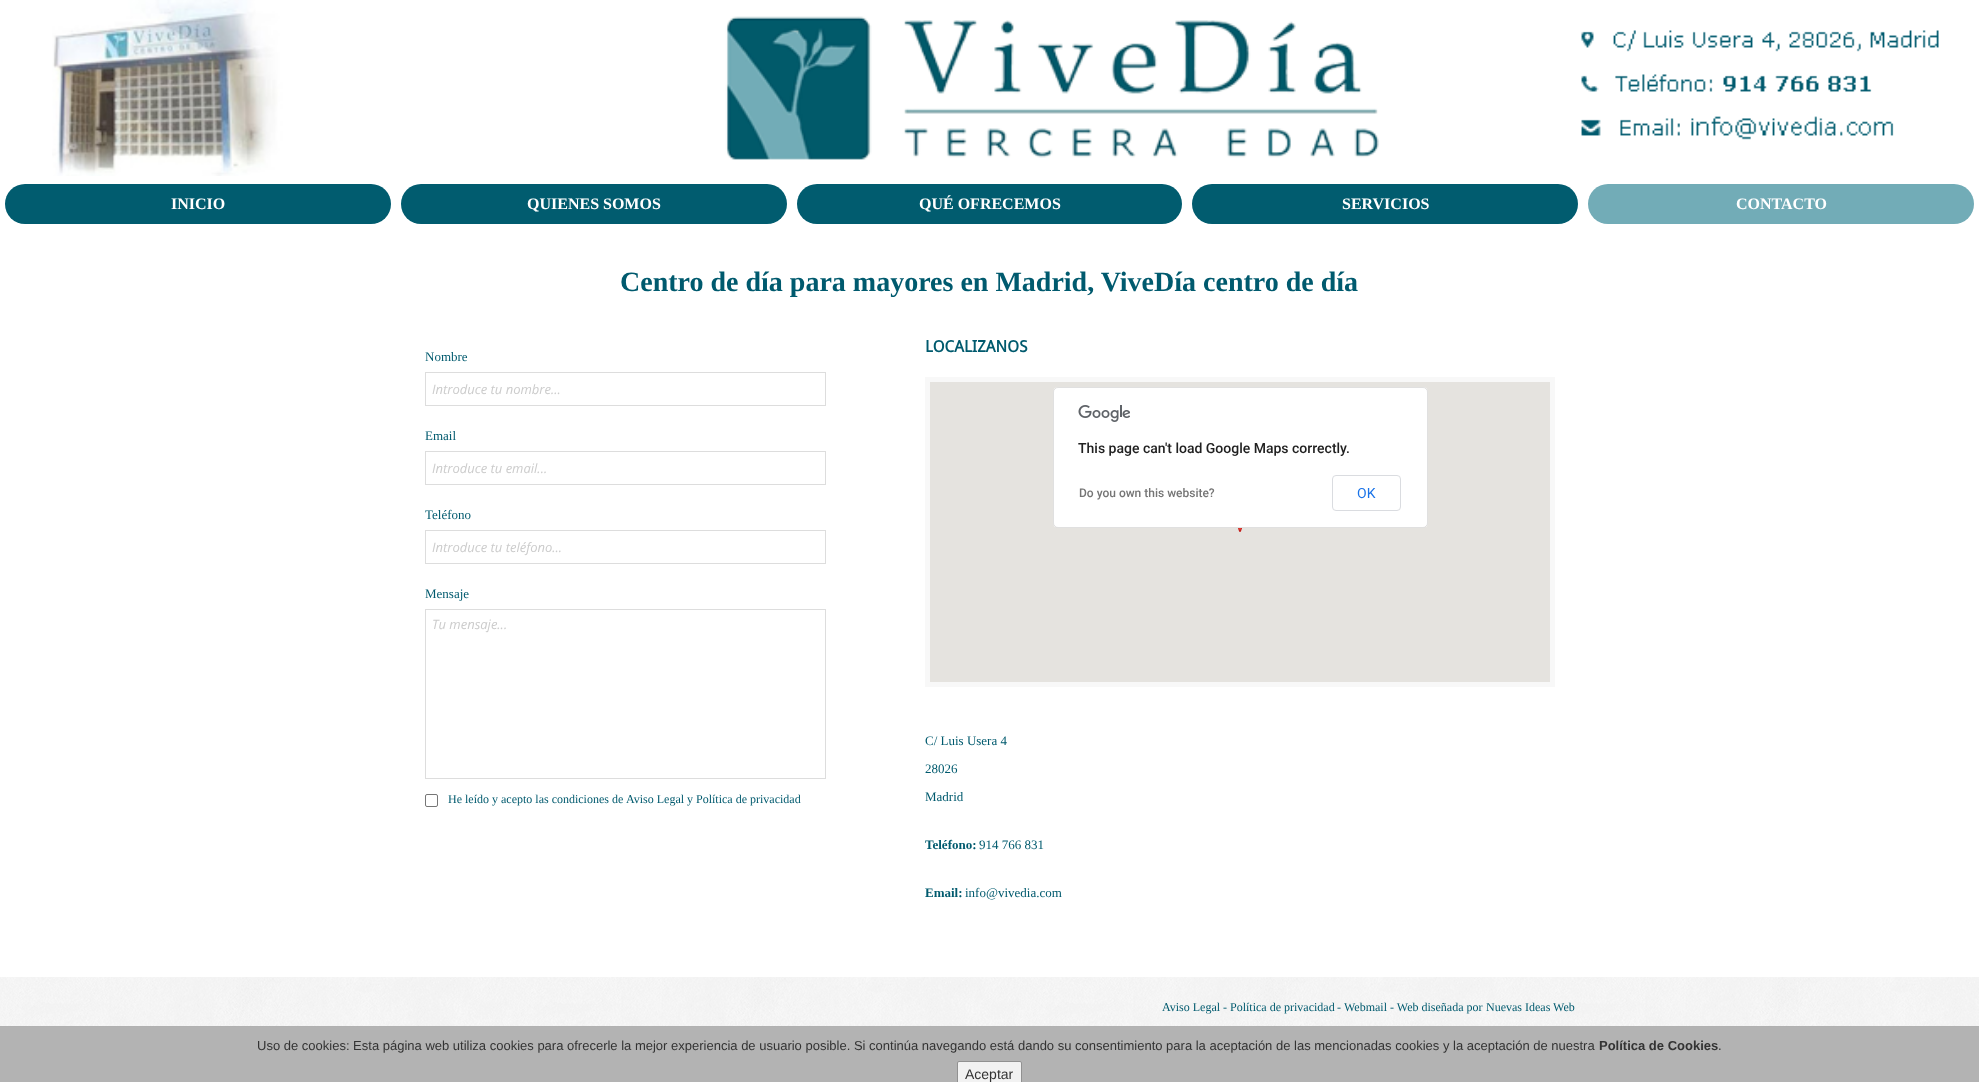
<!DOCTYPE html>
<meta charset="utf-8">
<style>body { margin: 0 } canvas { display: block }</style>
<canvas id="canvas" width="1979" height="1082"></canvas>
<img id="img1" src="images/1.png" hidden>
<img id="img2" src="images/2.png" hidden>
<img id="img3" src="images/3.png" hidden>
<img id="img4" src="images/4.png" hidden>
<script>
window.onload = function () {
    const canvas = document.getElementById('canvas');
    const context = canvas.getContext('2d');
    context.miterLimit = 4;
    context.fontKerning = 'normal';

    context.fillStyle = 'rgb(255, 255, 255)';
    context.fillRect(0, 0, 1979, 1082);
    context.drawImage(document.getElementById('img1'), 52, 0, 1887, 176);
    context.fillStyle = 'rgb(1, 92, 111)';
    context.beginPath();
    context.roundRect(5, 184, 386, 40, 20);
    context.fill();
    context.beginPath();
    context.roundRect(401, 184, 386, 40, 20);
    context.fill();
    context.beginPath();
    context.roundRect(797, 184, 385, 40, 20);
    context.fill();
    context.beginPath();
    context.roundRect(1192, 184, 386, 40, 20);
    context.fill();
    context.fillStyle = 'rgb(114, 172, 183)';
    context.beginPath();
    context.roundRect(1588, 184, 386, 40, 20);
    context.fill();
    context.strokeStyle = 'rgb(221, 221, 221)';
    context.strokeRect(425.5, 372.5, 400, 33);
    context.strokeRect(425.5, 451.5, 400, 33);
    context.strokeRect(425.5, 530.5, 400, 33);
    context.strokeRect(425.5, 609.5, 400, 169);
    context.beginPath();
    context.roundRect(425.5, 794.5, 12, 12, 1.5);
    context.strokeStyle = 'rgb(118, 118, 118)';
    context.stroke();
    context.strokeStyle = 'rgb(248, 248, 248)';
    context.lineWidth = 5;
    context.strokeRect(927.5, 379.5, 625, 305);
    context.fillStyle = 'rgb(229, 227, 223)';
    context.fillRect(930, 382, 620, 300);
    context.drawImage(document.getElementById('img2'), 1238, 528, 4, 4);
    context.fillStyle = 'rgb(255, 255, 255)';
    context.beginPath();
    context.roundRect(1053, 387, 375, 141, 5);
    context.fill();
    context.beginPath();
    context.roundRect(1053.5, 387.5, 374, 140, 4.5);
    context.strokeStyle = 'rgba(0, 0, 0, 0.12)';
    context.lineWidth = 1;
    context.stroke();
    context.drawImage(document.getElementById('img3'), 1078, 405, 52, 17);
    context.beginPath();
    context.roundRect(1332.5, 475.5, 68, 35, 3.5);
    context.strokeStyle = 'rgb(218, 220, 224)';
    context.stroke();
    context.drawImage(document.getElementById('img4'), 0, 977, 1979, 50);
    context.fillStyle = 'rgba(160, 160, 160, 0.8)';
    context.fillRect(0, 1026, 1979, 56);
    context.fillStyle = 'rgb(242, 242, 242)';
    context.beginPath();
    context.roundRect(957.5, 1061.5, 64, 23, 1.5);
    context.fill();
    context.strokeStyle = 'rgb(145, 145, 145)';
    context.stroke();
    context.font = 'bold 16px Liberation Serif';
    context.fillStyle = 'rgb(255, 255, 255)';
    context.fillText('INICIO', 171, 209);
    context.fillText('QUIENES SOMOS', 527, 209);
    context.fillText('QUÉ OFRECEMOS', 919, 209);
    context.fillText('SERVICIOS', 1342, 209);
    context.fillText('CONTACTO', 1736, 209);
    context.font = 'bold 28px Liberation Serif';
    context.fillStyle = 'rgb(0, 90, 110)';
    context.fillText('Centro de día para mayores en Madrid, ViveDía centro de día', 620, 291);
    context.font = '13px Liberation Serif';
    context.fillText('Nombre', 425, 361);
    context.font = 'italic 13px Open Sans';
    context.fillStyle = 'rgb(204, 204, 204)';
    context.fillText('Introduce tu nombre...', 432, 394);
    context.font = '13px Liberation Serif';
    context.fillStyle = 'rgb(0, 90, 110)';
    context.fillText('Email', 425, 440);
    context.font = 'italic 13px Open Sans';
    context.fillStyle = 'rgb(204, 204, 204)';
    context.fillText('Introduce tu email...', 432, 473);
    context.font = '13px Liberation Serif';
    context.fillStyle = 'rgb(0, 90, 110)';
    context.fillText('Teléfono', 425, 519);
    context.font = 'italic 13px Open Sans';
    context.fillStyle = 'rgb(204, 204, 204)';
    context.fillText('Introduce tu teléfono...', 432, 552);
    context.font = '13px Liberation Serif';
    context.fillStyle = 'rgb(0, 90, 110)';
    context.fillText('Mensaje', 425, 598);
    context.font = 'italic 13px Open Sans';
    context.fillStyle = 'rgb(204, 204, 204)';
    context.fillText('Tu mensaje...', 432, 629);
    context.font = '12px Liberation Serif';
    context.fillStyle = 'rgb(0, 90, 110)';
    context.fillText('He leído y acepto las condiciones de', 448, 803);
    context.fillText('Aviso Legal', 626, 803);
    context.fillText('y', 687, 803);
    context.fillText('Política de privacidad', 696, 803);
    context.font = 'bold 16px Droid Sans';
    context.fillText('LOCALIZANOS', 925, 352);
    context.font = '500 14px Roboto';
    context.fillStyle = 'rgb(33, 33, 33)';
    context.fillText('This page can\'t load Google Maps correctly.', 1078, 453);
    context.font = '500 12px Roboto';
    context.fillStyle = 'rgb(117, 117, 117)';
    context.fillText('Do you own this website?', 1079, 497);
    context.font = '14px Roboto';
    context.fillStyle = 'rgb(26, 115, 232)';
    context.fillText('OK', 1357, 498);
    context.font = '13px Liberation Serif';
    context.fillStyle = 'rgb(0, 90, 110)';
    context.fillText('C/ Luis Usera 4', 925, 745);
    context.fillText('28026', 925, 773);
    context.fillText('Madrid', 925, 801);
    context.font = 'bold 13px Liberation Serif';
    context.fillText('Teléfono:', 925, 849);
    context.font = '13px Liberation Serif';
    context.fillText('914 766 831', 979, 849);
    context.font = 'bold 13px Liberation Serif';
    context.fillText('Email:', 925, 897);
    context.font = '13px Liberation Serif';
    context.fillText('info@vivedia.com', 965, 897);
    context.font = '12px Liberation Serif';
    context.fillText('Aviso Legal', 1162, 1011);
    context.fillText('-', 1223, 1011);
    context.fillText('Política de privacidad', 1230, 1011);
    context.fillText('-', 1337, 1011);
    context.fillText('Webmail', 1344, 1011);
    context.fillText('- Web diseñada por', 1390, 1011);
    context.fillText('Nuevas Ideas Web', 1486, 1011);
    context.font = '13px Liberation Sans';
    context.fillStyle = 'rgb(51, 51, 51)';
    context.fillText('Uso de cookies: Esta página web utiliza cookies para ofrecerle la mejor experiencia de usuario posible. Si continúa navegando está dando su consentimiento para la aceptación de las mencionadas cookies y la aceptación de nuestra', 257, 1050);
    context.font = 'bold 13px Liberation Sans';
    context.fillText('Política de Cookies', 1599, 1050);
    context.font = '13px Liberation Sans';
    context.fillText('.', 1718, 1050);
    context.font = '14px Liberation Sans';
    context.fillText('Aceptar', 965, 1079);
};
</script>
